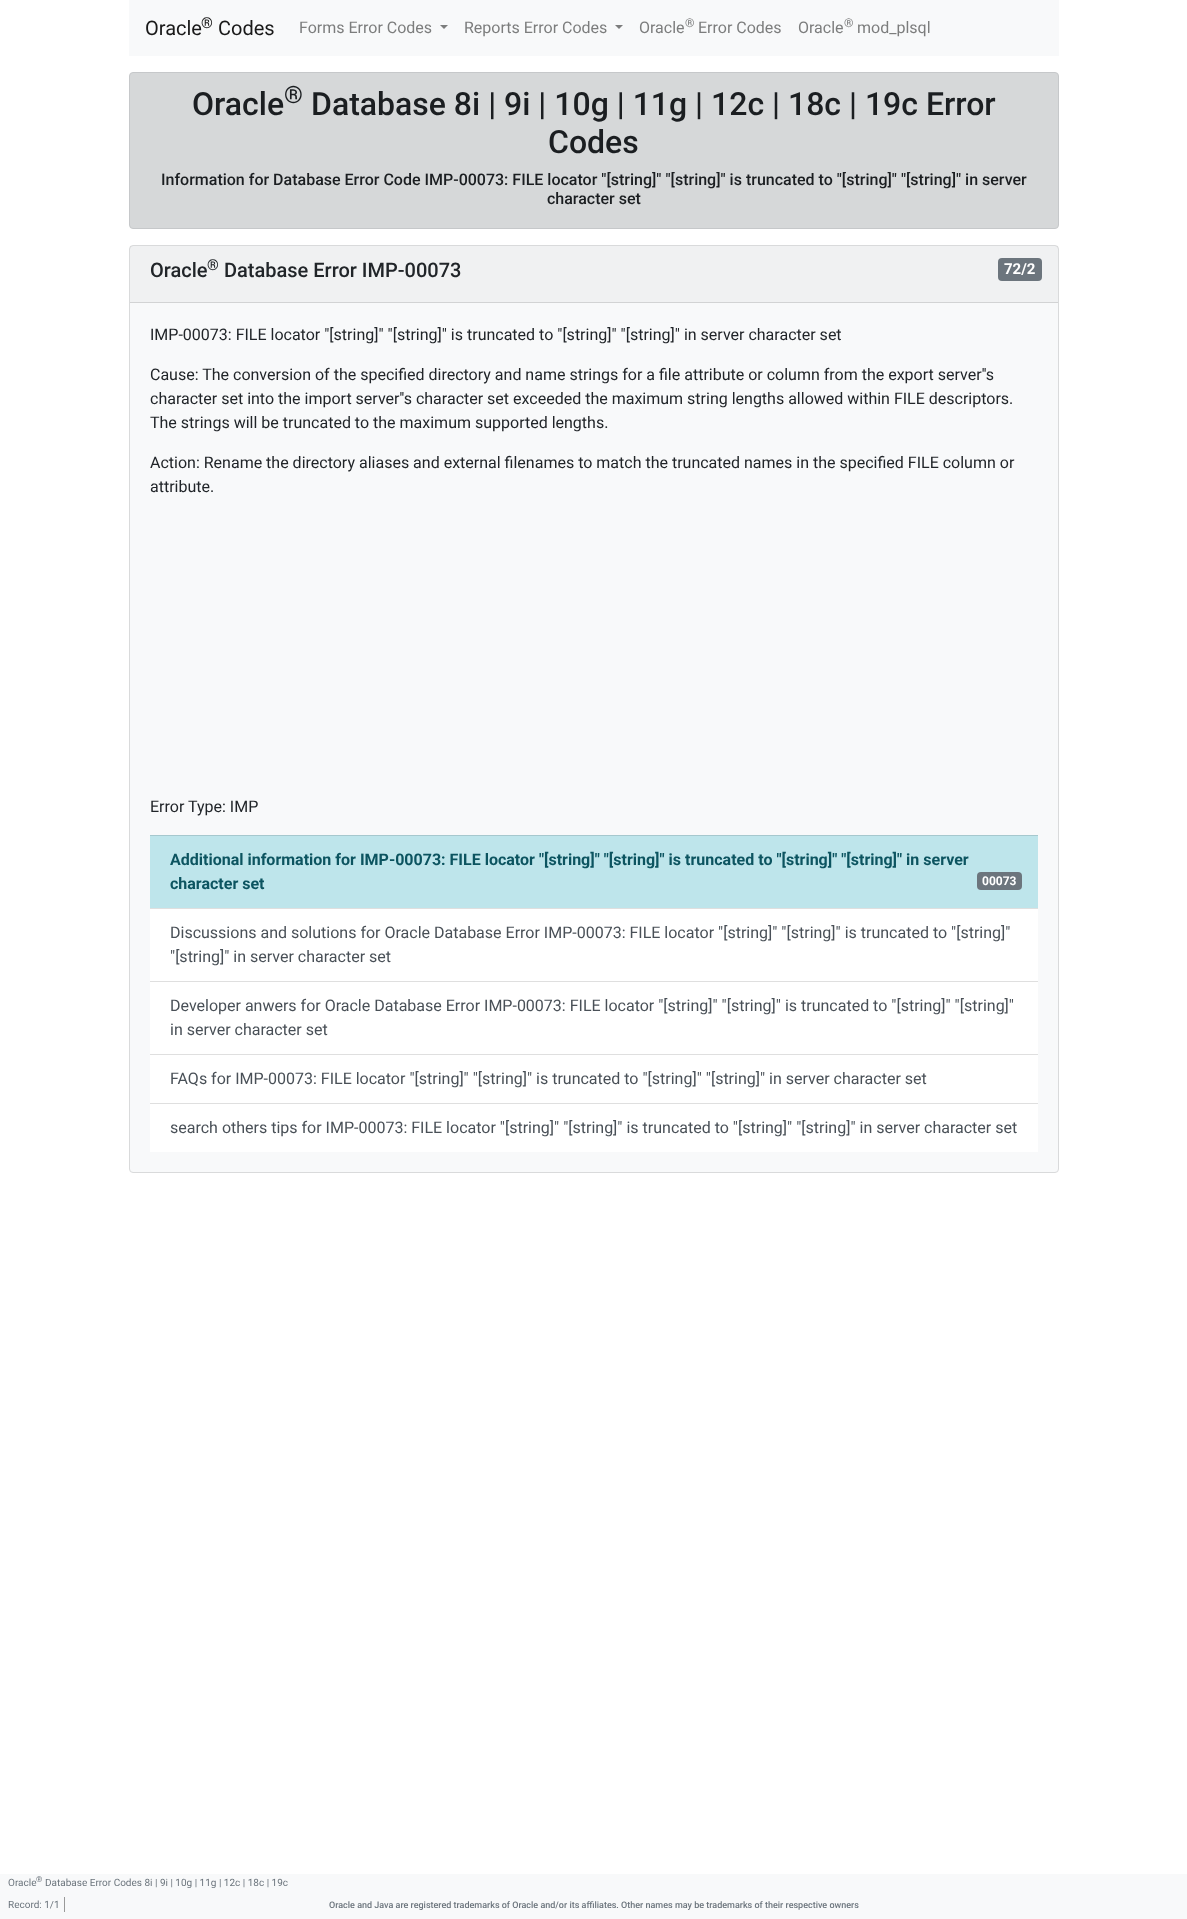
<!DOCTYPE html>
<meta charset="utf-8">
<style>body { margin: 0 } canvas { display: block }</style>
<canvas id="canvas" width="1187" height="1919"></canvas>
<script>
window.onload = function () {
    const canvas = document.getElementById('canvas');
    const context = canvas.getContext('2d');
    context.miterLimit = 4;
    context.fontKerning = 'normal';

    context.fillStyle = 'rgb(255, 255, 255)';
    context.fillRect(0, 0, 1187, 1919);
    context.fillStyle = 'rgb(248, 249, 250)';
    context.fillRect(129, 0, 930, 56);
    context.fillStyle = 'rgb(124, 125, 125)';
    context.beginPath();
    context.moveTo(440, 25);
    context.lineTo(448, 25);
    context.lineTo(444, 29);
    context.closePath();
    context.fill();
    context.beginPath();
    context.moveTo(615, 25);
    context.lineTo(623, 25);
    context.lineTo(619, 29);
    context.closePath();
    context.fill();
    context.fillStyle = 'rgb(214, 216, 217)';
    context.beginPath();
    context.roundRect(129.5, 72.5, 929, 156, 3.5);
    context.fill();
    context.strokeStyle = 'rgb(198, 200, 202)';
    context.stroke();
    context.fillStyle = 'rgb(248, 249, 250)';
    context.beginPath();
    context.roundRect(129.5, 245.5, 929, 927, 3.5);
    context.fill();
    context.strokeStyle = 'rgb(217, 218, 219)';
    context.stroke();
    context.fillStyle = 'rgba(0, 0, 0, 0.03)';
    context.fillRect(130, 246, 928, 56);
    context.fillStyle = 'rgb(210, 211, 212)';
    context.fillRect(130, 302, 928, 1);
    context.fillStyle = 'rgb(108, 117, 125)';
    context.beginPath();
    context.roundRect(998, 258, 44, 23, 4);
    context.fill();
    context.fillStyle = 'rgb(190, 229, 235)';
    context.fillRect(150, 836, 888, 72);
    context.fillStyle = 'rgb(166, 200, 206)';
    context.fillRect(150, 835, 888, 1);
    context.fillStyle = 'rgb(108, 117, 125)';
    context.beginPath();
    context.roundRect(977, 872, 45, 18, 4);
    context.fill();
    context.fillStyle = 'rgb(255, 255, 255)';
    context.fillRect(150, 909, 888, 72);
    context.fillStyle = 'rgb(223, 223, 223)';
    context.fillRect(150, 908, 888, 1);
    context.fillStyle = 'rgb(255, 255, 255)';
    context.fillRect(150, 982, 888, 72);
    context.fillStyle = 'rgb(223, 223, 223)';
    context.fillRect(150, 981, 888, 1);
    context.fillStyle = 'rgb(255, 255, 255)';
    context.fillRect(150, 1055, 888, 48);
    context.fillStyle = 'rgb(223, 223, 223)';
    context.fillRect(150, 1054, 888, 1);
    context.fillStyle = 'rgb(255, 255, 255)';
    context.fillRect(150, 1104, 888, 48);
    context.fillStyle = 'rgb(223, 223, 223)';
    context.fillRect(150, 1103, 888, 1);
    context.fillStyle = 'rgb(248, 249, 250)';
    context.fillRect(0, 1874, 1187, 45);
    context.fillStyle = 'rgb(153, 153, 153)';
    context.fillRect(64, 1897, 1, 15);
    context.font = '20px Roboto';
    context.fillStyle = 'rgb(25, 25, 25)';
    context.fillText('Oracle', 145, 35);
    context.font = '15px Roboto';
    context.fillText('®', 201, 28);
    context.font = '20px Roboto';
    context.fillText('Codes', 218, 35);
    context.font = '16px Roboto';
    context.fillStyle = 'rgb(124, 125, 125)';
    context.fillText('Forms Error Codes', 299, 33);
    context.fillText('Reports Error Codes', 464, 33);
    context.fillText('Oracle', 639, 33);
    context.font = '12px Roboto';
    context.fillText('®', 685, 27);
    context.font = '16px Roboto';
    context.fillText('Error Codes', 698, 33);
    context.fillText('Oracle', 798, 33);
    context.font = '12px Roboto';
    context.fillText('®', 844, 27);
    context.font = '16px Roboto';
    context.fillText('mod_plsql', 857, 33);
    context.font = '500 32px Roboto';
    context.fillStyle = 'rgb(27, 30, 33)';
    context.fillText('Oracle', 192, 115);
    context.font = '500 24px Roboto';
    context.fillText('®', 284, 103);
    context.font = '500 32px Roboto';
    context.fillText('Database 8i | 9i | 10g | 11g | 12c | 18c | 19c Error', 311, 115);
    context.fillText('Codes', 548, 153);
    context.font = '500 16px Roboto';
    context.fillText('Information for Database Error Code IMP-00073: FILE locator "[string]" "[string]" is truncated to "[string]" "[string]" in server', 161, 185);
    context.fillText('character set', 547, 204);
    context.font = '500 20px Roboto';
    context.fillStyle = 'rgb(33, 37, 41)';
    context.fillText('Oracle', 150, 277);
    context.font = '500 15px Roboto';
    context.fillText('®', 207, 270);
    context.font = '500 20px Roboto';
    context.fillText('Database Error IMP-00073', 224, 277);
    context.font = 'bold 15px Roboto';
    context.fillStyle = 'rgb(255, 255, 255)';
    context.fillText('72/2', 1004, 274);
    context.font = '16px Roboto';
    context.fillStyle = 'rgb(33, 37, 41)';
    context.fillText('IMP-00073: FILE locator "[string]" "[string]" is truncated to "[string]" "[string]" in server character set', 150, 340);
    context.fillText('Cause: The conversion of the specified directory and name strings for a file attribute or column from the export server\'\'s', 150, 380);
    context.fillText('character set into the import server\'\'s character set exceeded the maximum string lengths allowed within FILE descriptors.', 150, 404);
    context.fillText('The strings will be truncated to the maximum supported lengths.', 150, 428);
    context.fillText('Action: Rename the directory aliases and external filenames to match the truncated names in the specified FILE column or', 150, 468);
    context.fillText('attribute.', 150, 492);
    context.fillText('Error Type: IMP', 150, 812);
    context.font = 'bold 16px Roboto';
    context.fillStyle = 'rgb(12, 84, 96)';
    context.fillText('Additional information for IMP-00073: FILE locator "[string]" "[string]" is truncated to "[string]" "[string]" in server', 170, 865);
    context.fillText('character set', 170, 889);
    context.font = 'bold 12px Roboto';
    context.fillStyle = 'rgb(255, 255, 255)';
    context.fillText('00073', 982, 885);
    context.font = '16px Roboto';
    context.fillStyle = 'rgb(73, 80, 87)';
    context.fillText('Discussions and solutions for Oracle Database Error IMP-00073: FILE locator "[string]" "[string]" is truncated to "[string]"', 170, 938);
    context.fillText('"[string]" in server character set', 170, 962);
    context.fillText('Developer anwers for Oracle Database Error IMP-00073: FILE locator "[string]" "[string]" is truncated to "[string]" "[string]"', 170, 1011);
    context.fillText('in server character set', 170, 1035);
    context.fillText('FAQs for IMP-00073: FILE locator "[string]" "[string]" is truncated to "[string]" "[string]" in server character set', 170, 1084);
    context.fillText('search others tips for IMP-00073: FILE locator "[string]" "[string]" is truncated to "[string]" "[string]" in server character set', 170, 1133);
    context.font = '10px Roboto';
    context.fillStyle = 'rgb(108, 117, 125)';
    context.fillText('Oracle', 8, 1886);
    context.font = '8px Roboto';
    context.fillText('®', 36, 1882);
    context.font = '10px Roboto';
    context.fillText('Database Error Codes 8i | 9i | 10g | 11g | 12c | 18c | 19c', 45, 1886);
    context.fillText('Record: 1/1', 8, 1908);
    context.font = '500 9px Roboto';
    context.fillText('Oracle and Java are registered trademarks of Oracle and/or its affiliates. Other names may be trademarks of their respective owners', 329, 1908);
};
</script>
